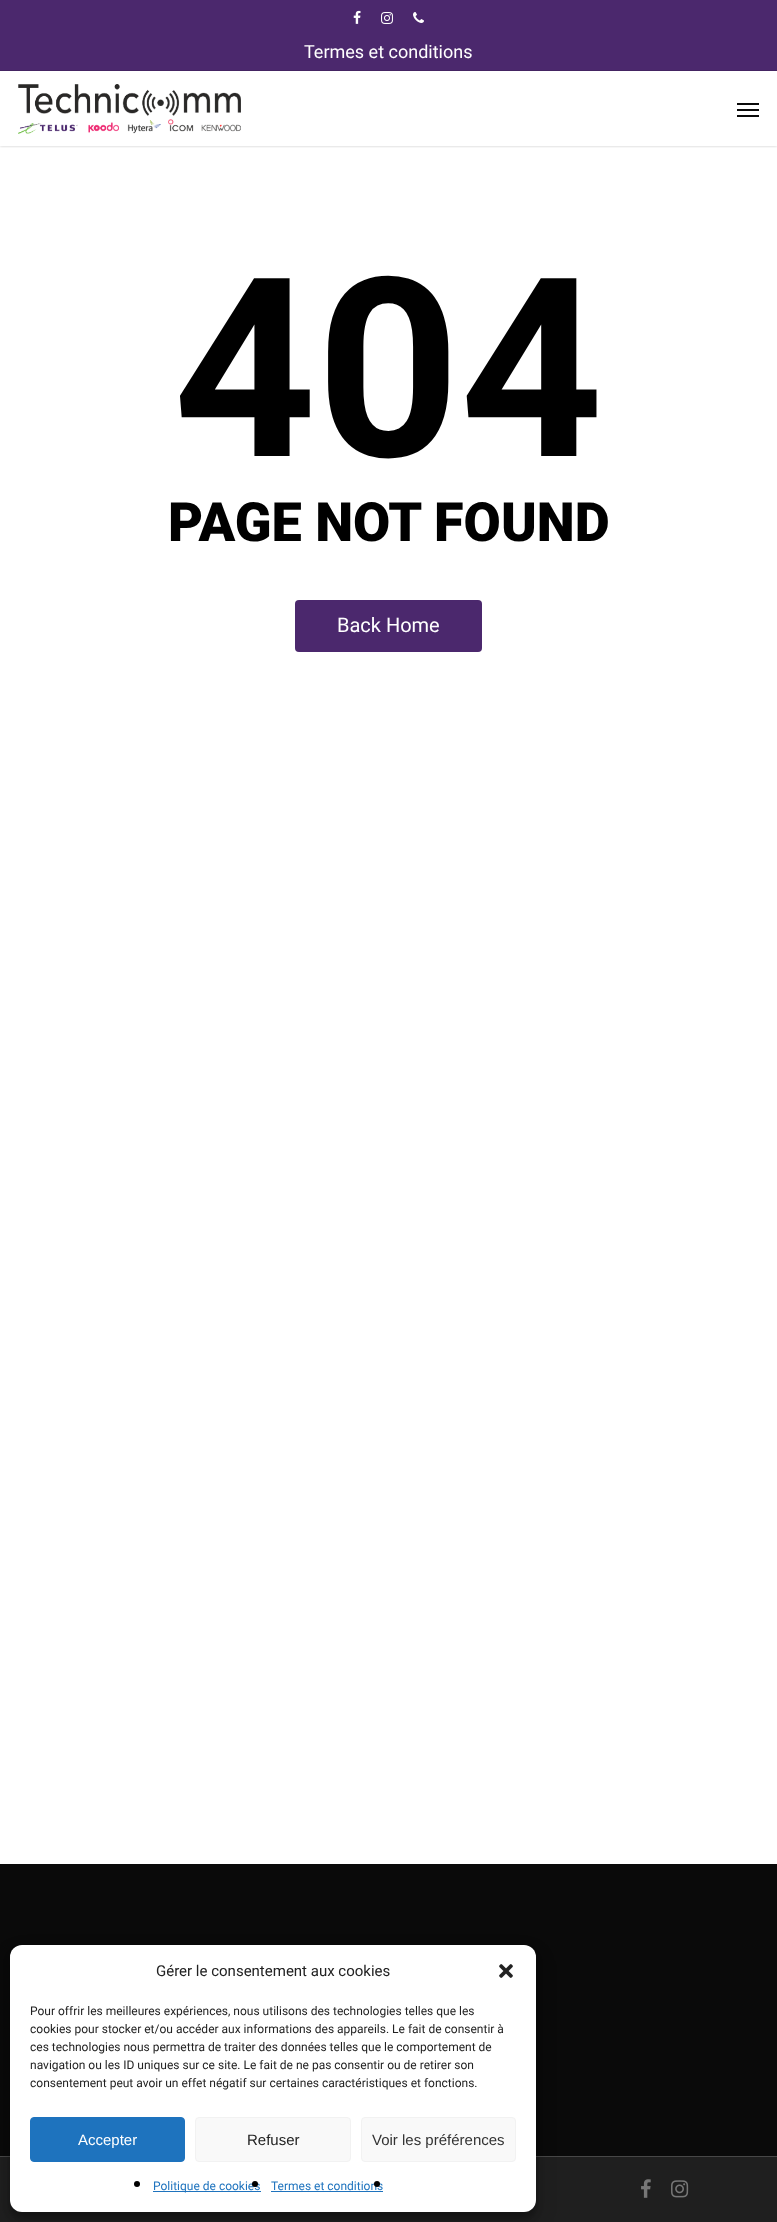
<!DOCTYPE html>
<meta charset="utf-8">
<style>body { margin: 0 } canvas { display: block }</style>
<canvas id="canvas" width="777" height="2222"></canvas>
<img id="img1" src="images/1.png" hidden>
<img id="img2" src="images/2.png" hidden>
<img id="img3" src="images/3.png" hidden>
<img id="img4" src="images/4.png" hidden>
<img id="img5" src="images/5.png" hidden>
<img id="img6" src="images/6.png" hidden>
<img id="img7" src="images/7.png" hidden>
<script>
window.onload = function () {
    const canvas = document.getElementById('canvas');
    const context = canvas.getContext('2d');
    context.miterLimit = 4;
    context.fontKerning = 'normal';

    context.fillStyle = 'rgb(255, 255, 255)';
    context.fillRect(0, 0, 777, 2222);
    context.save();
    context.beginPath();
    context.rect(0, 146, 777, 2);
    context.clip();
    context.fillStyle = 'rgba(0, 0, 0, 0.22)';
    context.filter = 'blur(1.5px)';
    context.beginPath();
    context.rect(0, 0, 777, 146);
    context.fill();
    context.filter = 'none';
    context.restore();
    context.fillStyle = 'rgb(75, 40, 109)';
    context.fillRect(0, 0, 777, 70);
    context.fillStyle = 'rgb(68, 36, 98)';
    context.fillRect(0, 70, 777, 1);
    context.drawImage(document.getElementById('img1'), 353, 10, 8, 14);
    context.drawImage(document.getElementById('img2'), 381, 12, 12, 12);
    context.drawImage(document.getElementById('img3'), 413, 12, 11, 11);
    context.drawImage(document.getElementById('img4'), 18, 84, 223, 50);
    context.fillStyle = 'rgb(10, 10, 10)';
    context.fillRect(737, 103, 22, 2);
    context.fillRect(737, 115, 22, 2);
    context.fillRect(737, 109, 22, 2);
    context.fillStyle = 'rgb(75, 40, 109)';
    context.beginPath();
    context.roundRect(295, 600, 187, 52, 4);
    context.fill();
    context.fillStyle = 'rgb(10, 10, 10)';
    context.fillRect(0, 1864, 777, 292);
    context.fillStyle = 'rgb(31, 31, 31)';
    context.fillRect(0, 2157, 777, 65);
    context.fillStyle = 'rgb(71, 71, 71)';
    context.fillRect(0, 2156, 777, 1);
    context.drawImage(document.getElementById('img5'), 641, 2179, 10, 19);
    context.drawImage(document.getElementById('img6'), 671, 2180, 18, 18);
    context.fillStyle = 'rgba(0, 0, 0, 0.23)';
    context.filter = 'blur(3px)';
    context.beginPath();
    context.roundRect(10, 1951, 526, 267, 12);
    context.fill();
    context.filter = 'none';
    context.fillStyle = 'rgba(0, 0, 0, 0.19)';
    context.filter = 'blur(10px)';
    context.beginPath();
    context.roundRect(10, 1955, 526, 267, 12);
    context.fill();
    context.filter = 'none';
    context.fillStyle = 'rgb(255, 255, 255)';
    context.beginPath();
    context.roundRect(10, 1945, 526, 267, 12);
    context.fill();
    context.drawImage(document.getElementById('img7'), 499, 1964, 14, 14);
    context.fillStyle = 'rgb(30, 115, 190)';
    context.beginPath();
    context.roundRect(30.5, 2117.5, 154, 44, 3.5);
    context.fill();
    context.strokeStyle = 'rgb(30, 115, 190)';
    context.stroke();
    context.fillStyle = 'rgb(249, 249, 249)';
    context.beginPath();
    context.roundRect(195.5, 2117.5, 155, 44, 3.5);
    context.fill();
    context.strokeStyle = 'rgb(242, 242, 242)';
    context.stroke();
    context.beginPath();
    context.roundRect(361.5, 2117.5, 154, 44, 3.5);
    context.fill();
    context.stroke();
    context.fillStyle = 'rgb(0, 0, 0)';
    context.beginPath();
    context.arc(137, 2184, 3, 0, 2 * Math.PI);
    context.fill();
    context.fillStyle = 'rgb(30, 115, 190)';
    context.fillRect(153, 2191, 108, 1);
    context.fillRect(271, 2191, 112, 1);
    context.font = '18px Roboto';
    context.fillStyle = 'rgb(255, 255, 255)';
    context.fillText('Termes et conditions', 304, 58);
    context.font = 'bold 250px Roboto';
    context.fillStyle = 'rgb(0, 0, 0)';
    context.fillText('404', 173, 456);
    context.font = '900 54px Roboto';
    context.fillText('PAGE NOT FOUND', 168, 541);
    context.font = '20px Roboto';
    context.fillStyle = 'rgb(255, 255, 255)';
    context.fillText('Back Home', 337, 632);
    context.font = '15px Roboto';
    context.fillStyle = 'rgb(34, 34, 34)';
    context.fillText('Gérer le consentement aux cookies', 156, 1976);
    context.font = '12px Roboto';
    context.fillText('Pour offrir les meilleures expériences, nous utilisons des technologies telles que les', 30, 2015);
    context.fillText('cookies pour stocker et/ou accéder aux informations des appareils. Le fait de consentir à', 30, 2033);
    context.fillText('ces technologies nous permettra de traiter des données telles que le comportement de', 30, 2051);
    context.fillText('navigation ou les ID uniques sur ce site. Le fait de ne pas consentir ou de retirer son', 30, 2069);
    context.fillText('consentement peut avoir un effet négatif sur certaines caractéristiques et fonctions.', 30, 2087);
    context.font = '15px Liberation Sans';
    context.fillStyle = 'rgb(255, 255, 255)';
    context.fillText('Accepter', 78, 2145);
    context.fillStyle = 'rgb(34, 34, 34)';
    context.fillText('Refuser', 247, 2145);
    context.fillStyle = 'rgb(51, 51, 51)';
    context.fillText('Voir les préférences', 372, 2145);
    context.font = '12px Roboto';
    context.fillStyle = 'rgb(30, 115, 190)';
    context.fillText('Politique de cookies', 153, 2190);
    context.fillStyle = 'rgb(0, 0, 0)';
    context.beginPath();
    context.arc(255, 2184, 3, 0, 2 * Math.PI);
    context.fill();
    context.fillStyle = 'rgb(30, 115, 190)';
    context.fillText('Termes et conditions', 271, 2190);
    context.fillStyle = 'rgb(0, 0, 0)';
    context.beginPath();
    context.arc(377, 2184, 3, 0, 2 * Math.PI);
    context.fill();
};
</script>
